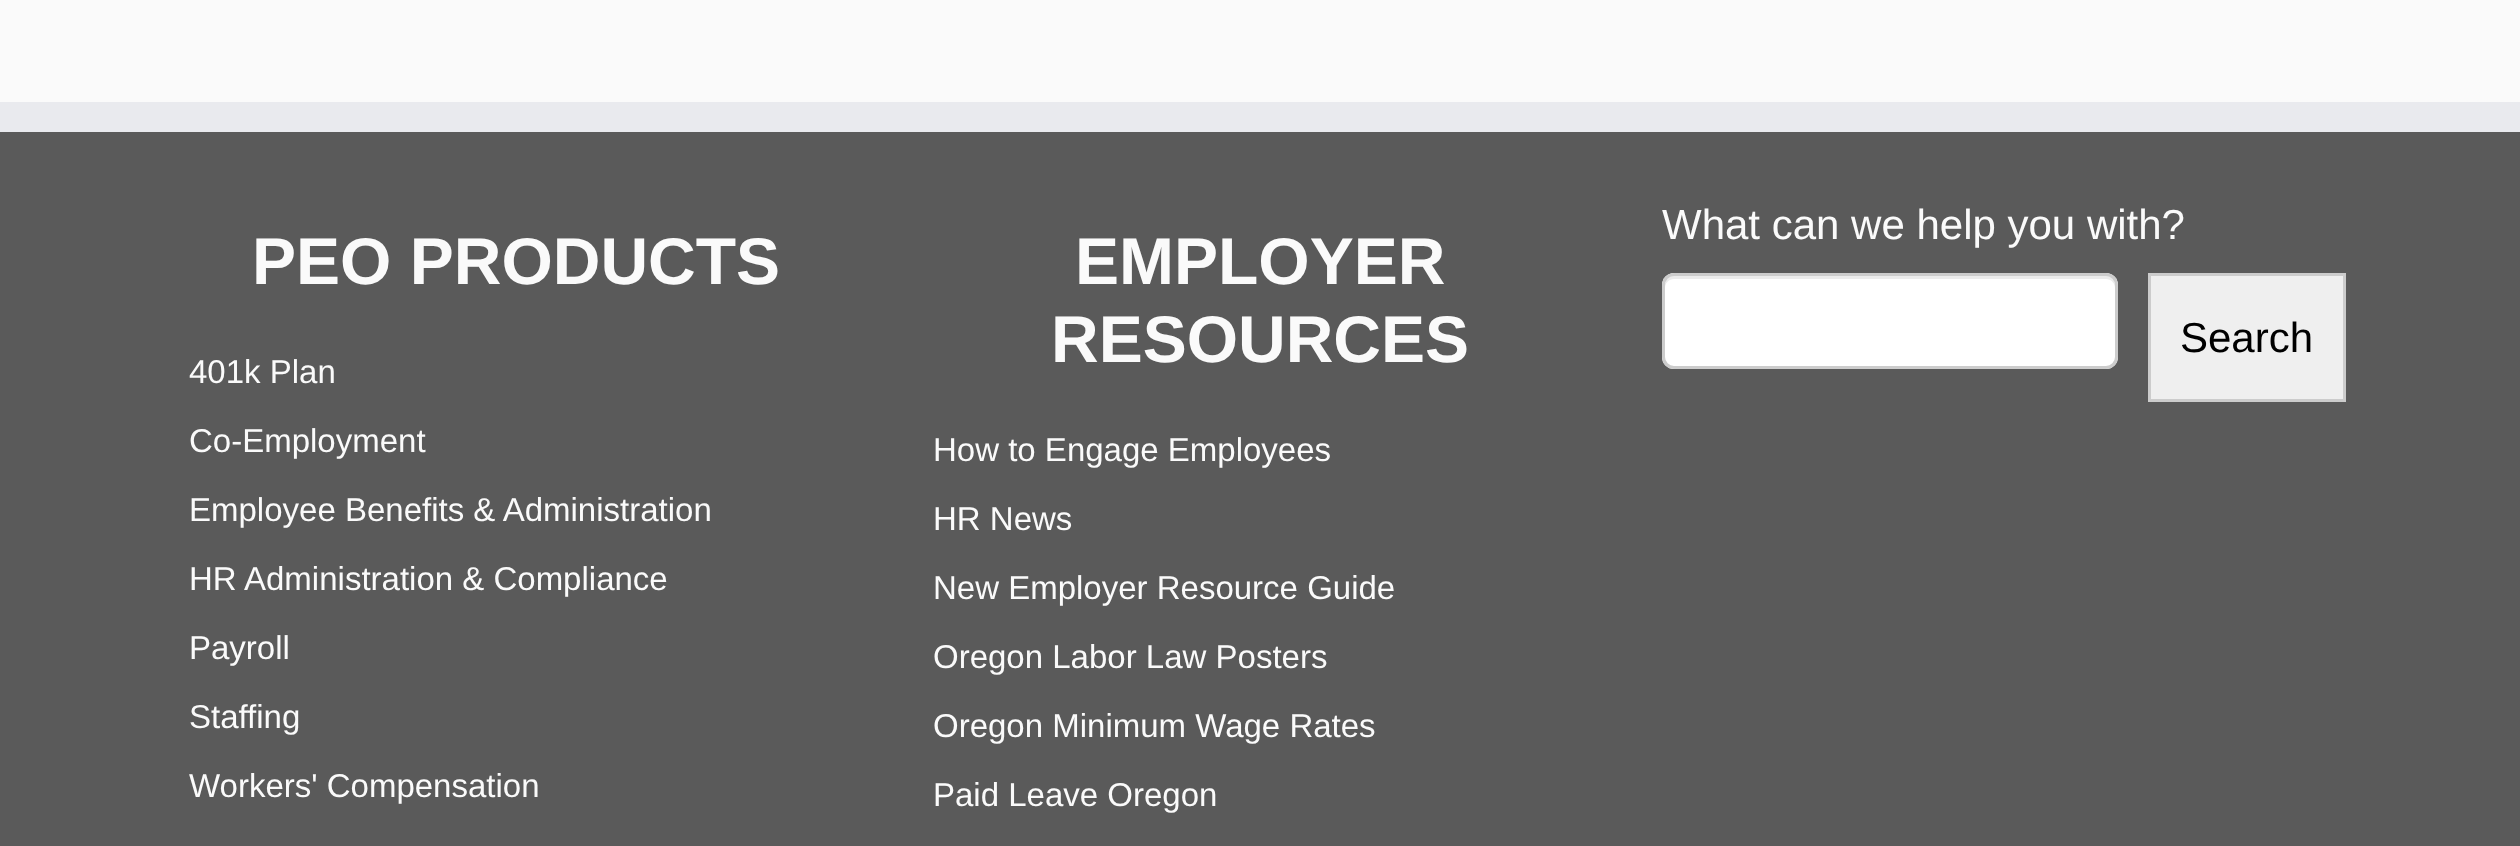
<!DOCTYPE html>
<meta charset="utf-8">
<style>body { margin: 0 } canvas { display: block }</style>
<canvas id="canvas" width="2520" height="846"></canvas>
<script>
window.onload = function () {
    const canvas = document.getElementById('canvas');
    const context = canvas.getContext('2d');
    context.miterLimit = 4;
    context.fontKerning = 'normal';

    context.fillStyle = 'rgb(250, 250, 250)';
    context.fillRect(0, 0, 2520, 846);
    context.fillStyle = 'rgb(90, 90, 90)';
    context.fillRect(0, 132, 2520, 714);
    context.fillStyle = 'rgb(233, 234, 238)';
    context.fillRect(0, 102, 2520, 30);
    context.fillStyle = 'rgb(255, 255, 255)';
    context.beginPath();
    context.roundRect(1662, 273, 456, 96, 12);
    context.fill();
    context.fillStyle = 'rgb(236, 236, 236)';
    context.beginPath();
    context.moveTo(1674, 279);
    context.lineTo(2106, 279);
    context.bezierCurveTo(2111, 279, 2115, 283, 2115, 288);
    context.lineTo(2115, 285);
    context.bezierCurveTo(2115, 280, 2111, 276, 2106, 276);
    context.lineTo(1674, 276);
    context.bezierCurveTo(1669, 276, 1665, 280, 1665, 285);
    context.lineTo(1665, 288);
    context.bezierCurveTo(1665, 283, 1669, 279, 1674, 279);
    context.closePath();
    context.fill();
    context.beginPath();
    context.roundRect(1663.5, 274.5, 453, 93, 10.5);
    context.strokeStyle = 'rgb(204, 204, 204)';
    context.lineWidth = 3;
    context.stroke();
    context.fillStyle = 'rgb(239, 239, 239)';
    context.beginPath();
    context.rect(2149.5, 274.5, 195, 126);
    context.fill();
    context.stroke();
    context.font = 'bold 66px Liberation Sans';
    context.fillStyle = 'rgb(250, 250, 250)';
    context.fillText('PEO PRODUCTS', 252, 284);
    context.font = '33px Liberation Sans';
    context.fillText('401k Plan', 189, 383);
    context.fillText('Co-Employment', 189, 452);
    context.fillText('Employee Benefits & Administration', 189, 521);
    context.fillText('HR Administration & Compliance', 189, 590);
    context.fillText('Payroll', 189, 659);
    context.fillText('Staffing', 189, 728);
    context.fillText('Workers\' Compensation', 189, 797);
    context.font = 'bold 66px Liberation Sans';
    context.fillText('EMPLOYER', 1075, 284);
    context.fillText('RESOURCES', 1051, 362);
    context.font = '33px Liberation Sans';
    context.fillText('How to Engage Employees', 933, 461);
    context.fillText('HR News', 933, 530);
    context.fillText('New Employer Resource Guide', 933, 599);
    context.fillText('Oregon Labor Law Posters', 933, 668);
    context.fillText('Oregon Minimum Wage Rates', 933, 737);
    context.fillText('Paid Leave Oregon', 933, 806);
    context.font = '42px Liberation Sans';
    context.fillText('What can we help you with?', 1662, 239);
    context.fillStyle = 'rgb(0, 0, 0)';
    context.fillText('Search', 2180, 352);
};
</script>
